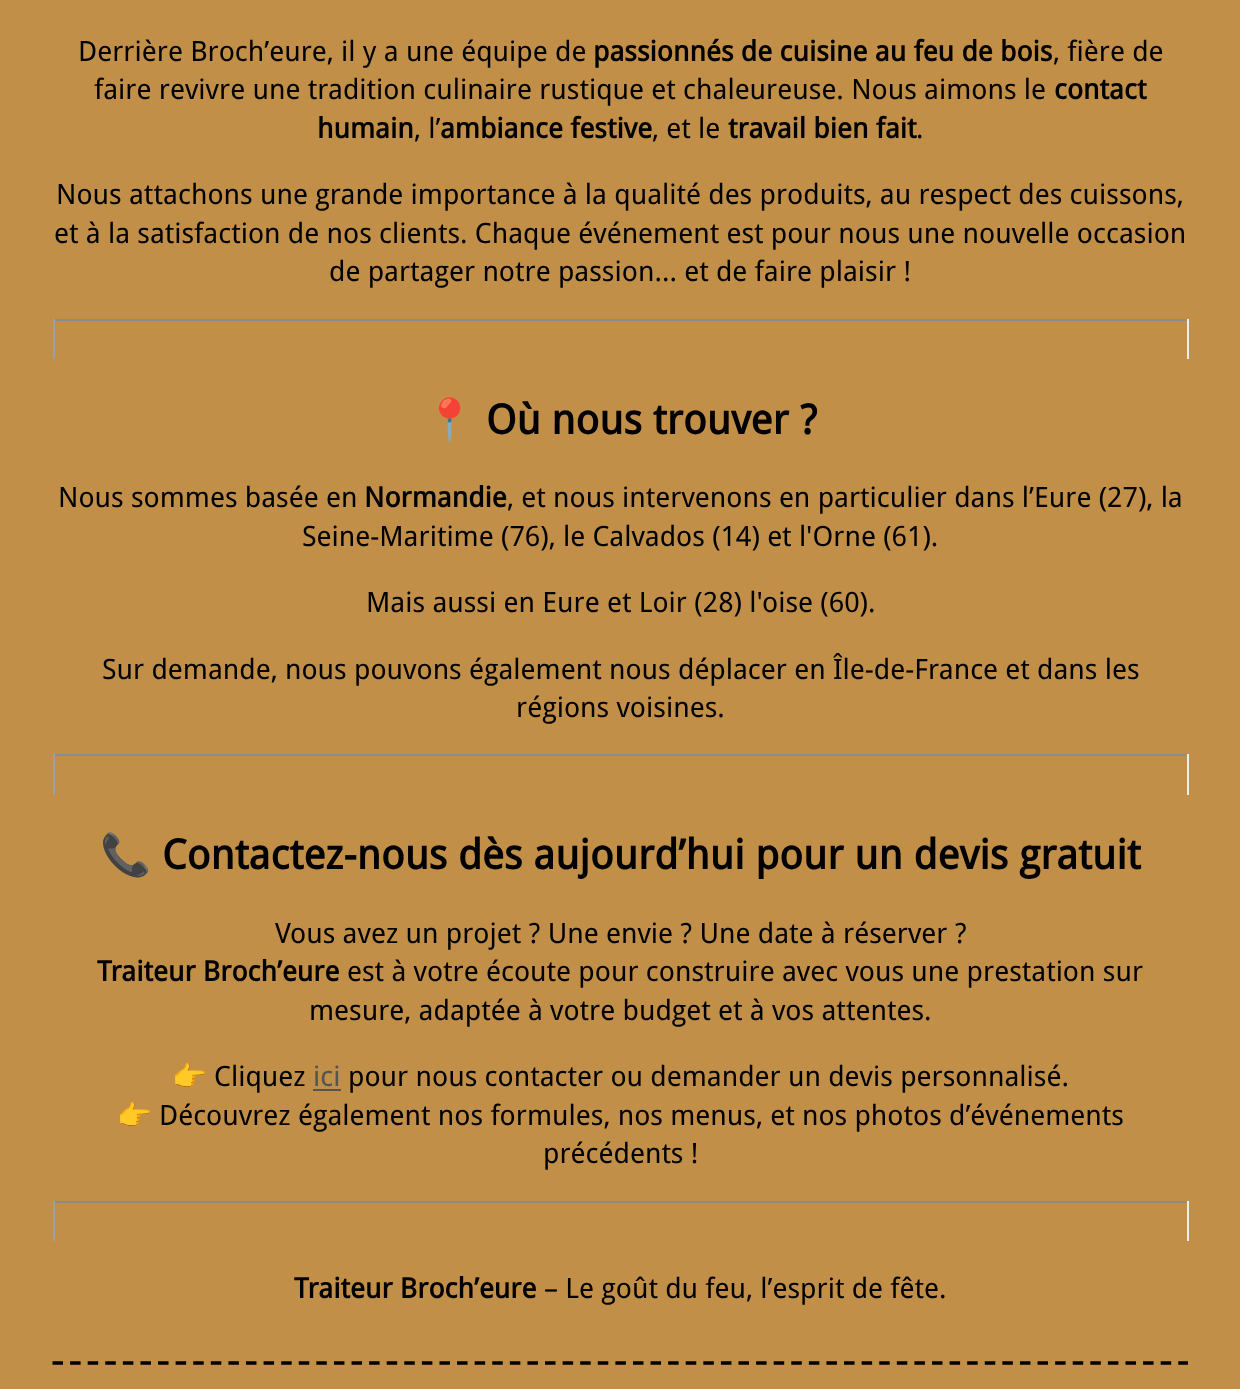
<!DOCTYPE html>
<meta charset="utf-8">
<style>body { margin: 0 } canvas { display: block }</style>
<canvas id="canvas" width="1240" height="1389"></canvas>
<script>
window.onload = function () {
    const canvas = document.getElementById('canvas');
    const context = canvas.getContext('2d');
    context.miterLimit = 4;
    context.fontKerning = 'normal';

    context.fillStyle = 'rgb(193, 143, 72)';
    context.fillRect(0, 0, 1240, 1389);
    context.fillStyle = 'rgb(140, 139, 139)';
    context.fillRect(53, 319, 1135, 2);
    context.fillStyle = 'rgb(238, 238, 238)';
    context.fillRect(1187, 319, 2, 40);
    context.fillStyle = 'rgb(159, 159, 159)';
    context.fillRect(53, 319, 2, 40);
    context.fillStyle = 'rgb(140, 139, 139)';
    context.fillRect(53, 754, 1135, 2);
    context.fillStyle = 'rgb(238, 238, 238)';
    context.fillRect(1187, 754, 2, 41);
    context.fillStyle = 'rgb(159, 159, 159)';
    context.fillRect(53, 754, 2, 41);
    context.fillStyle = 'rgb(83, 84, 84)';
    context.fillRect(313, 1089, 28, 2);
    context.fillStyle = 'rgb(140, 139, 139)';
    context.fillRect(53, 1201, 1135, 2);
    context.fillStyle = 'rgb(238, 238, 238)';
    context.fillRect(1187, 1201, 2, 40);
    context.fillStyle = 'rgb(159, 159, 159)';
    context.fillRect(53, 1201, 2, 40);
    context.beginPath();
    context.moveTo(52.5, 1363);
    context.lineTo(1188, 1363);
    context.strokeStyle = 'rgb(0, 0, 0)';
    context.lineWidth = 3.5;
    context.setLineDash([10.5, 7.09]);
    context.stroke();
    context.font = '28px Droid Sans';
    context.fillStyle = 'rgb(0, 0, 0)';
    context.fillText('Derrière Broch’eure, il y a une équipe de', 78, 61);
    context.font = 'bold 28px Droid Sans';
    context.fillText('passionnés de cuisine au feu de bois', 593, 61);
    context.font = '28px Droid Sans';
    context.fillText(', fière de', 1053, 61);
    context.fillText('faire revivre une tradition culinaire rustique et chaleureuse. Nous aimons le', 94, 99);
    context.font = 'bold 28px Droid Sans';
    context.fillText('contact', 1054, 99);
    context.fillText('humain', 317, 138);
    context.font = '28px Droid Sans';
    context.fillText(', l’', 414, 138);
    context.font = 'bold 28px Droid Sans';
    context.fillText('ambiance festive', 440, 138);
    context.font = '28px Droid Sans';
    context.fillText(', et le', 652, 138);
    context.font = 'bold 28px Droid Sans';
    context.fillText('travail bien fait', 728, 138);
    context.font = '28px Droid Sans';
    context.fillText('.', 916, 138);
    context.fillText('Nous attachons une grande importance à la qualité des produits, au respect des cuissons,', 56, 204);
    context.fillText('et à la satisfaction de nos clients. Chaque événement est pour nous une nouvelle occasion', 54, 243);
    context.fillText('de partager notre passion… et de faire plaisir !', 329, 281);
    context.font = 'bold 41.1px Noto Color Emoji';
    context.fillText('📍', 424, 434);
    context.font = 'bold 41.1px Droid Sans';
    context.fillText('Où nous trouver ?', 486, 434);
    context.font = '28px Droid Sans';
    context.fillText('Nous sommes basée en', 58, 507);
    context.font = 'bold 28px Droid Sans';
    context.fillText('Normandie', 364, 507);
    context.font = '28px Droid Sans';
    context.fillText(', et nous intervenons en particulier dans l’Eure (27), la', 507, 507);
    context.fillText('Seine-Maritime (76), le Calvados (14) et l\'Orne (61).', 302, 546);
    context.fillText('Mais aussi en Eure et Loir (28) l\'oise (60).', 366, 612);
    context.fillText('Sur demande, nous pouvons également nous déplacer en Île-de-France et dans les', 102, 679);
    context.fillText('régions voisines.', 516, 717);
    context.font = 'bold 41.1px Noto Color Emoji';
    context.fillText('📞', 100, 869);
    context.font = 'bold 41.1px Droid Sans';
    context.fillText('Contactez-nous dès aujourd’hui pour un devis gratuit', 162, 869);
    context.font = '28px Droid Sans';
    context.fillText('Vous avez un projet ? Une envie ? Une date à réserver ?', 275, 943);
    context.font = 'bold 28px Droid Sans';
    context.fillText('Traiteur Broch’eure', 97, 981);
    context.font = '28px Droid Sans';
    context.fillText('est à votre écoute pour construire avec vous une prestation sur', 347, 981);
    context.fillText('mesure, adaptée à votre budget et à vos attentes.', 309, 1020);
    context.font = '28px Noto Color Emoji';
    context.fillText('👉', 172, 1086);
    context.font = '28px Droid Sans';
    context.fillText('Cliquez', 214, 1086);
    context.fillStyle = 'rgb(83, 84, 84)';
    context.fillText('ici', 313, 1086);
    context.fillStyle = 'rgb(0, 0, 0)';
    context.fillText('pour nous contacter ou demander un devis personnalisé.', 348, 1086);
    context.font = '28px Noto Color Emoji';
    context.fillText('👉', 117, 1125);
    context.font = '28px Droid Sans';
    context.fillText('Découvrez également nos formules, nos menus, et nos photos d’événements', 159, 1125);
    context.fillText('précédents !', 543, 1163);
    context.font = 'bold 28px Droid Sans';
    context.fillText('Traiteur Broch’eure', 294, 1298);
    context.font = '28px Droid Sans';
    context.fillText('– Le goût du feu, l’esprit de fête.', 544, 1298);
};
</script>
